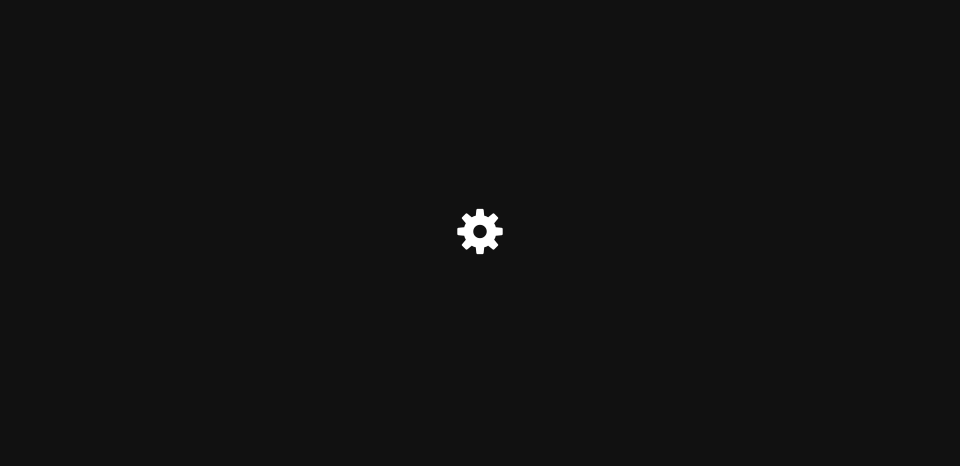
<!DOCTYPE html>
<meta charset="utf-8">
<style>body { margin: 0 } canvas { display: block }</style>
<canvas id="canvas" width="960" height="466"></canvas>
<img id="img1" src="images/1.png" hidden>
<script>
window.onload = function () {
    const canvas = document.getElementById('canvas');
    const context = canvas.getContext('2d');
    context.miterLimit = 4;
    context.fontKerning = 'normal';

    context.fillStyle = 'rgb(17, 17, 17)';
    context.fillRect(0, 0, 960, 466);
    context.drawImage(document.getElementById('img1'), 457, 208, 46, 47);
};
</script>
